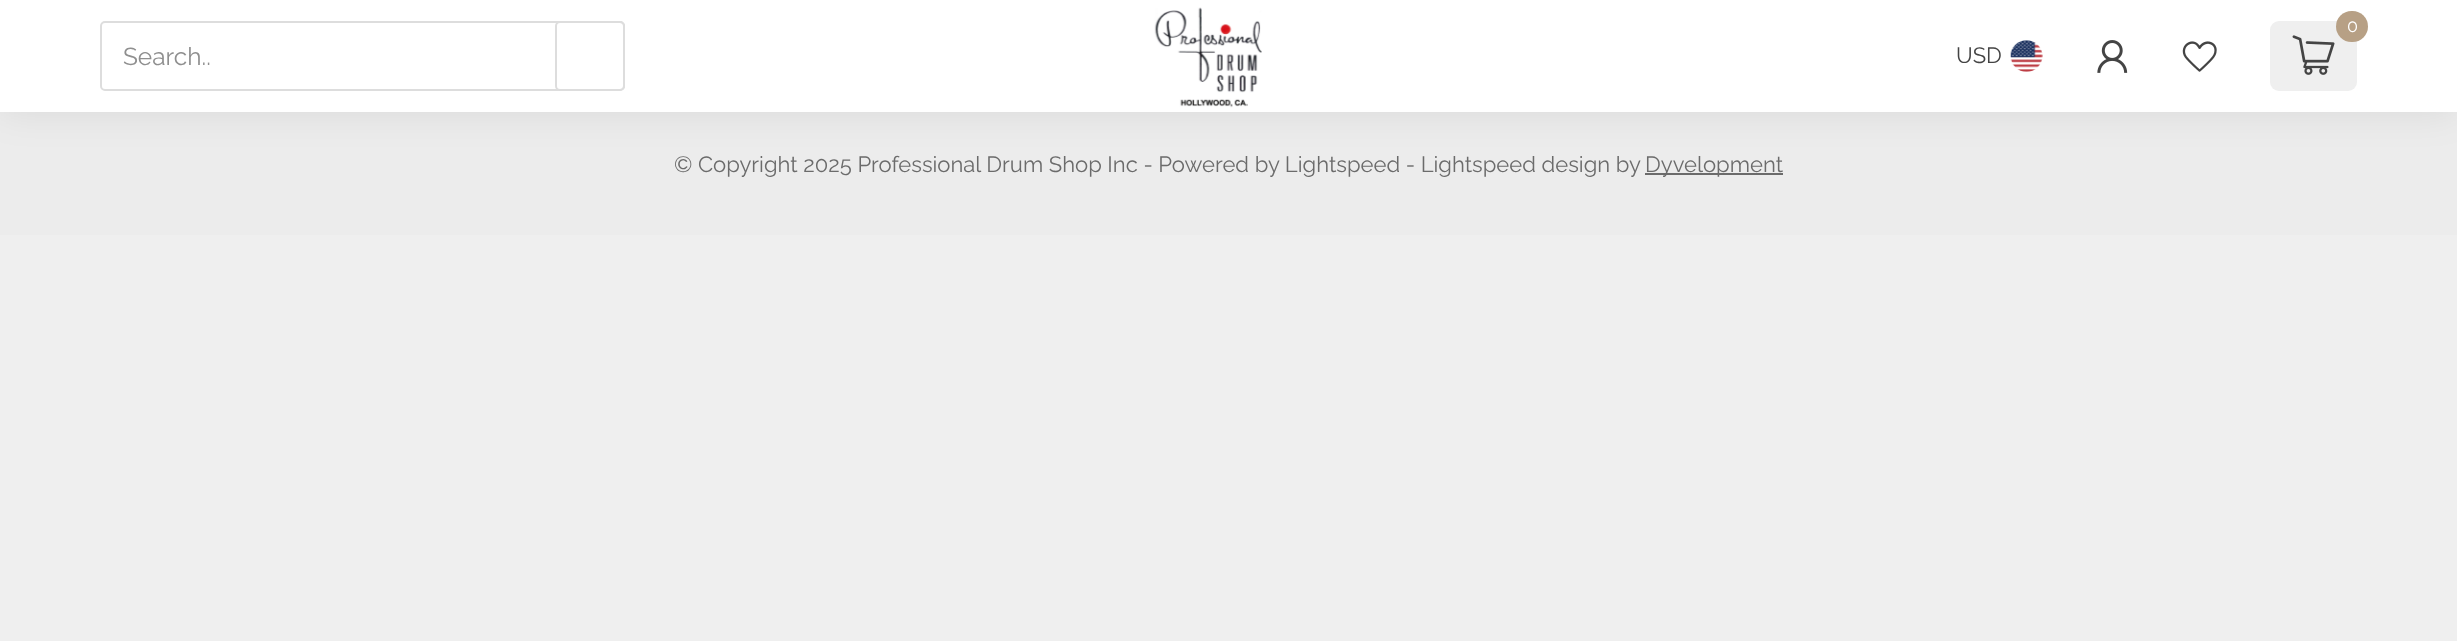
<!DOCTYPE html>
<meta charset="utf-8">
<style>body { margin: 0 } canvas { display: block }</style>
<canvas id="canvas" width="2457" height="641"></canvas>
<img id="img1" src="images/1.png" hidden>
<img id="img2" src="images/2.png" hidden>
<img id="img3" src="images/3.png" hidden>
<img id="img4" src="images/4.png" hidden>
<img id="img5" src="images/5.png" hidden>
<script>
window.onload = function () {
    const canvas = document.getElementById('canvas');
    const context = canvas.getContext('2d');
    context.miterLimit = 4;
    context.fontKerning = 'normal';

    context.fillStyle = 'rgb(239, 239, 239)';
    context.fillRect(0, 0, 2457, 641);
    context.fillStyle = 'rgb(236, 236, 236)';
    context.fillRect(0, 112, 2457, 123);
    context.fillStyle = 'rgba(0, 0, 0, 0.08)';
    context.filter = 'blur(19px)';
    context.beginPath();
    context.rect(0, -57, 2457, 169);
    context.fill();
    context.filter = 'none';
    context.fillStyle = 'rgb(255, 255, 255)';
    context.fillRect(0, 0, 2457, 112);
    context.beginPath();
    context.roundRect(101, 22, 523, 68, 4);
    context.strokeStyle = 'rgb(221, 221, 221)';
    context.lineWidth = 2;
    context.stroke();
    context.beginPath();
    context.roundRect(556, 22, 68, 68, 4);
    context.stroke();
    context.drawImage(document.getElementById('img1'), 1154, 7, 108, 101);
    context.fillStyle = 'rgb(239, 239, 239)';
    context.beginPath();
    context.roundRect(2270, 21, 87, 70, 9);
    context.fill();
    context.fillStyle = 'rgb(183, 160, 133)';
    context.beginPath();
    context.roundRect(2336, 11, 32, 31, 15.5);
    context.fill();
    context.drawImage(document.getElementById('img2'), 2292, 35, 43, 40);
    context.drawImage(document.getElementById('img3'), 2010, 40, 33, 32);
    context.drawImage(document.getElementById('img4'), 2097, 40, 31, 33);
    context.drawImage(document.getElementById('img5'), 2182, 41, 35, 31);
    context.fillStyle = 'rgb(107, 107, 107)';
    context.fillRect(1645, 173, 138, 2);
    context.font = '24.5px Raleway';
    context.fillStyle = 'rgb(143, 143, 143)';
    context.fillText('Search..', 123, 65);
    context.font = '18px Raleway';
    context.fillStyle = 'rgb(255, 255, 255)';
    context.fillText('0', 2347, 32);
    context.font = '22.05px Raleway';
    context.fillStyle = 'rgb(68, 68, 68)';
    context.fillText('USD', 1956, 63);
    context.fillStyle = 'rgb(107, 107, 107)';
    context.fillText('© Copyright 2025 Professional Drum Shop Inc - Powered by Lightspeed - Lightspeed design by', 674, 172);
    context.fillText('Dyvelopment', 1645, 172);
};
</script>
